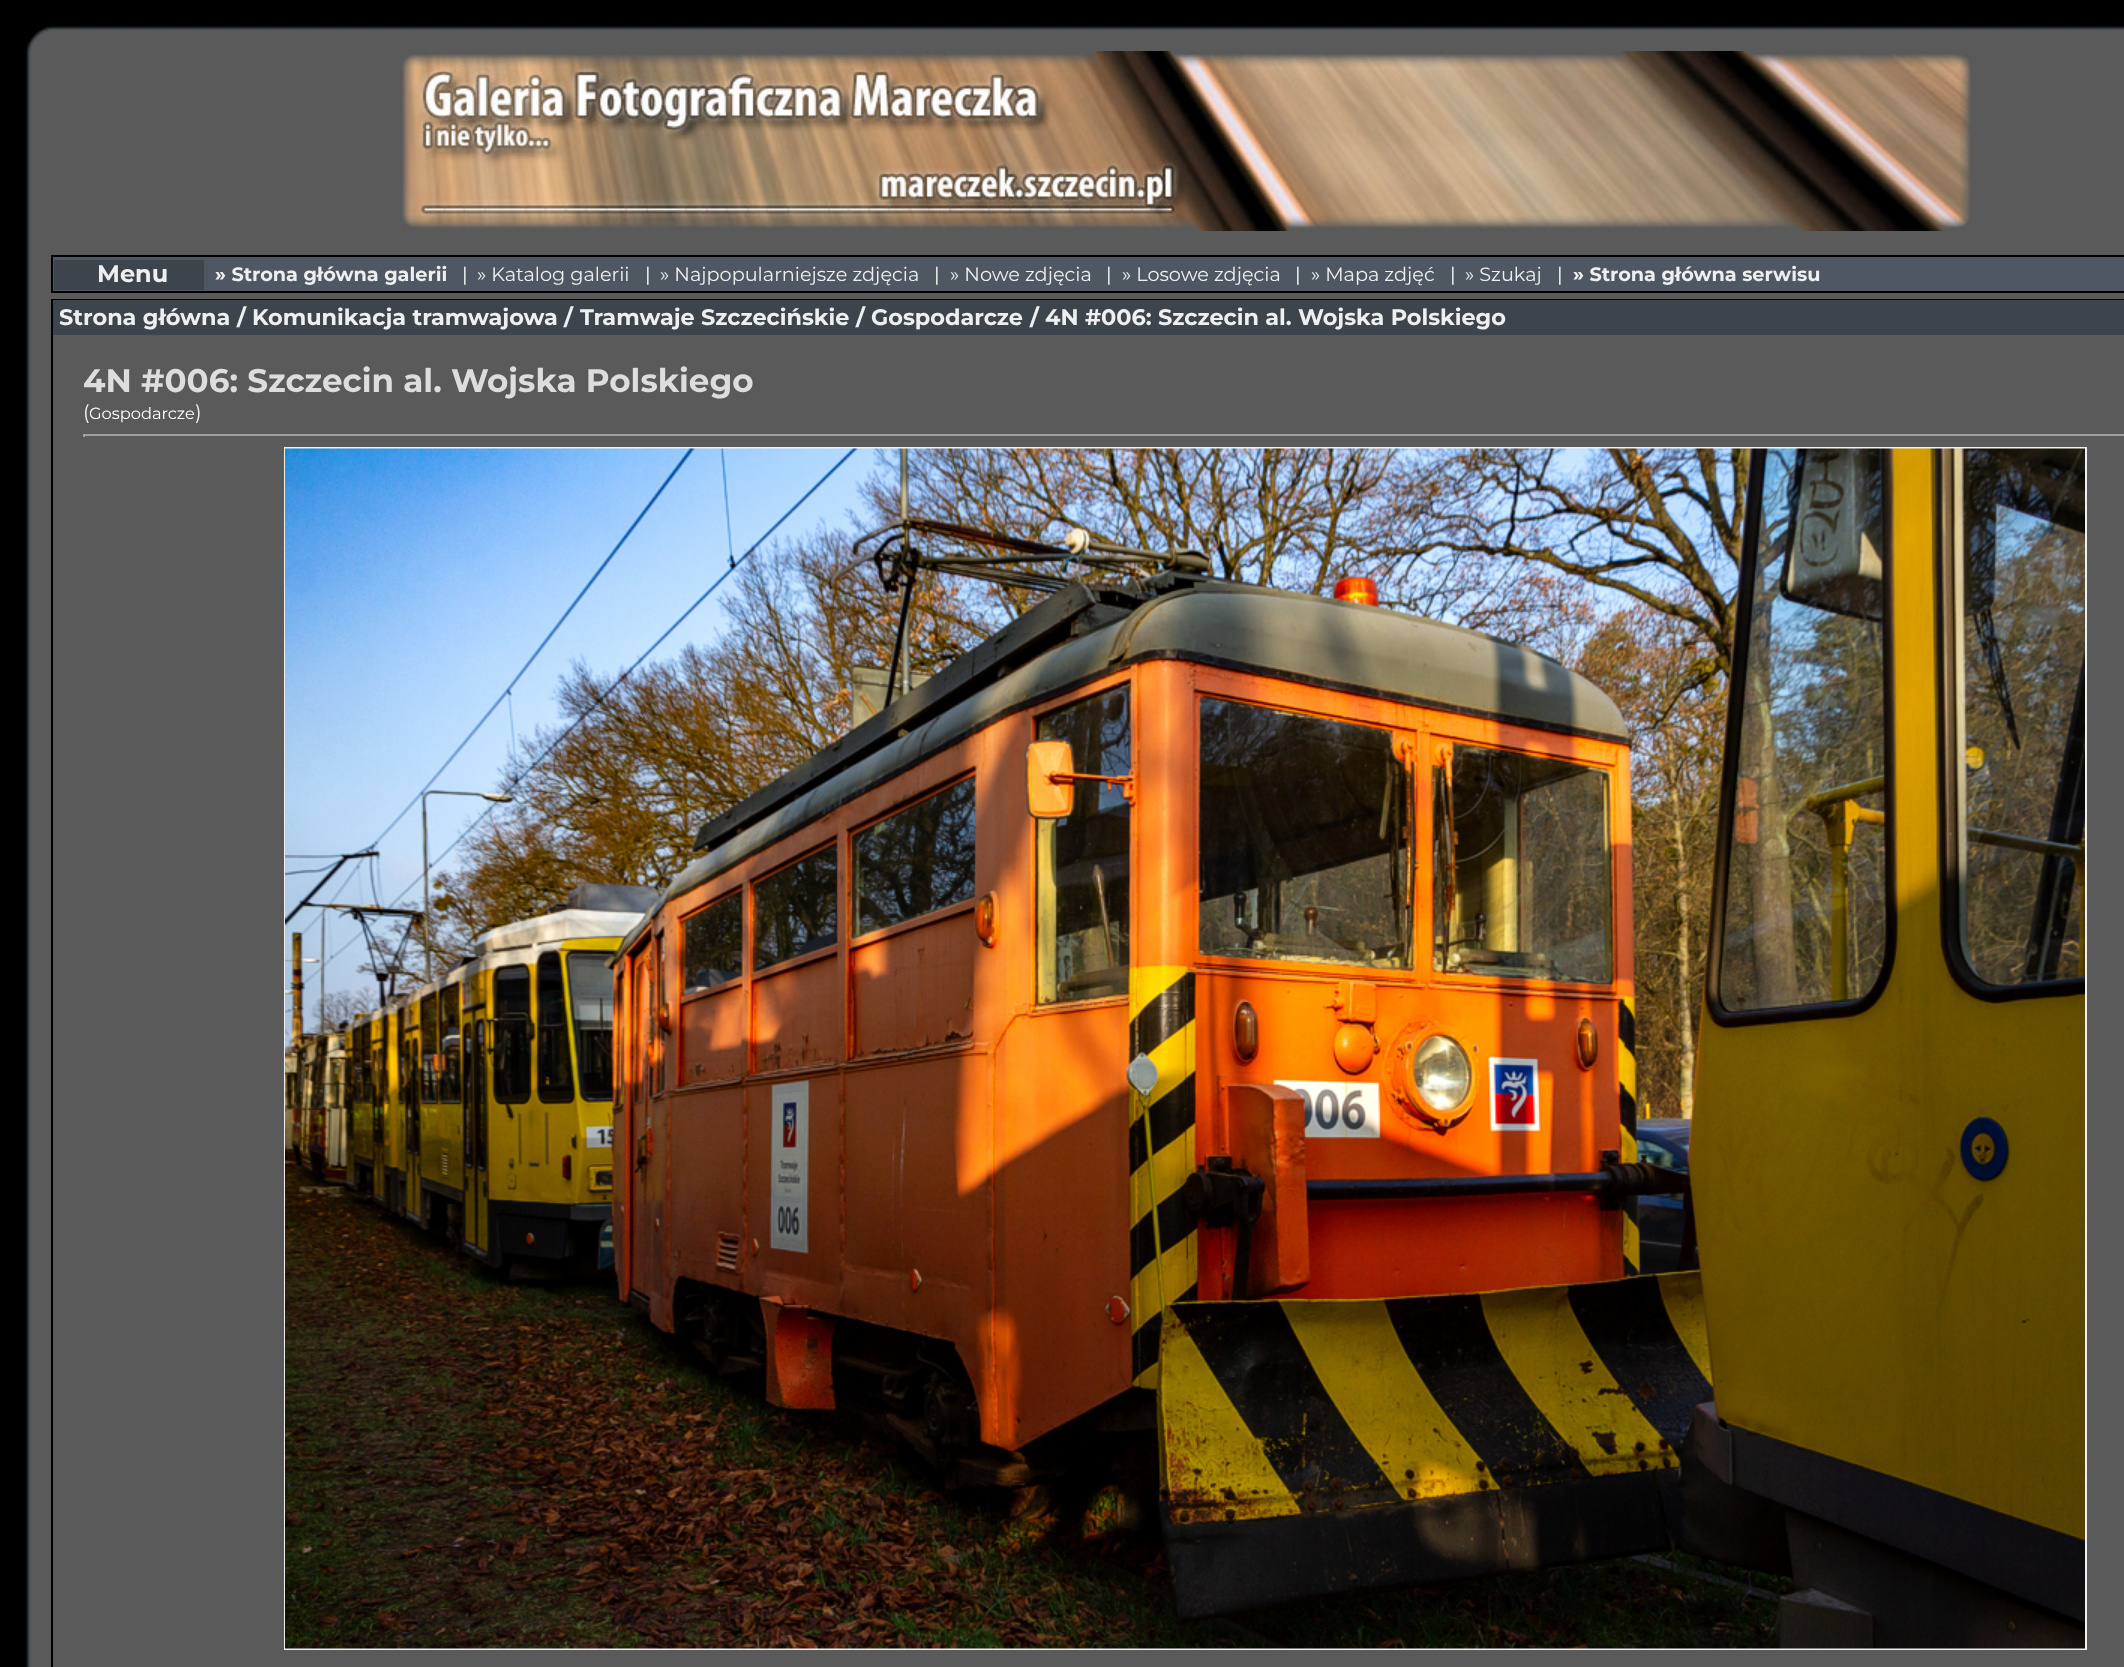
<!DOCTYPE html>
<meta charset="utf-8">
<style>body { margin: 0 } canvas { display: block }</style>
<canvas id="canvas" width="2124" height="1667"></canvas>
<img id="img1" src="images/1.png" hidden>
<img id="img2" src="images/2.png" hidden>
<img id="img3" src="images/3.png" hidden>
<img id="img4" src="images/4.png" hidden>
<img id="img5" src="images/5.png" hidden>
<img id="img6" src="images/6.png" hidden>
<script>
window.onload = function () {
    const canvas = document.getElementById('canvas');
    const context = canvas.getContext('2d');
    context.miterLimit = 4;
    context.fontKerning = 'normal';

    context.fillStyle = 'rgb(0, 0, 0)';
    context.fillRect(0, 0, 2124, 1667);
    context.drawImage(document.getElementById('img1'), 26, 26, 25, 25);
    context.drawImage(document.getElementById('img2'), 51, 26, 2073, 25);
    context.drawImage(document.getElementById('img3'), 53, 30, 16, 1);
    context.drawImage(document.getElementById('img4'), 26, 51, 25, 1616);
    context.fillStyle = 'rgb(90, 90, 90)';
    context.fillRect(51, 51, 2073, 248);
    context.drawImage(document.getElementById('img5'), 399, 51, 1572, 180);
    context.fillStyle = 'rgb(0, 0, 0)';
    context.fillRect(51, 255, 2073, 38);
    context.fillStyle = 'rgb(79, 88, 98)';
    context.fillRect(53, 257, 2071, 34);
    context.fillStyle = 'rgb(61, 68, 75)';
    context.fillRect(54, 260, 150, 30);
    context.fillStyle = 'rgb(90, 90, 90)';
    context.fillRect(53, 335, 2071, 1332);
    context.fillStyle = 'rgb(61, 68, 75)';
    context.fillRect(53, 300, 2071, 35);
    context.fillStyle = 'rgb(159, 159, 159)';
    context.fillRect(83, 434, 2041, 2);
    context.fillRect(83, 434, 2, 3);
    context.strokeStyle = 'rgb(239, 239, 239)';
    context.lineWidth = 2;
    context.strokeRect(285, 448, 1801, 1201);
    context.drawImage(document.getElementById('img6'), 285, 448, 1800, 1201);
    context.font = 'bold 24px Montserrat';
    context.fillStyle = 'rgb(239, 239, 239)';
    context.fillText('Menu', 97, 282);
    context.font = 'bold 19.25px Montserrat';
    context.fillText('» Strona główna galerii', 215, 281);
    context.font = '19.25px Montserrat';
    context.fillStyle = 'rgb(255, 255, 255)';
    context.fillText('|', 462, 281);
    context.fillStyle = 'rgb(239, 239, 239)';
    context.fillText('» Katalog galerii', 477, 281);
    context.fillStyle = 'rgb(255, 255, 255)';
    context.fillText('|', 645, 281);
    context.fillStyle = 'rgb(239, 239, 239)';
    context.fillText('» Najpopularniejsze zdjęcia', 660, 281);
    context.fillStyle = 'rgb(255, 255, 255)';
    context.fillText('|', 934, 281);
    context.fillStyle = 'rgb(239, 239, 239)';
    context.fillText('» Nowe zdjęcia', 950, 281);
    context.fillStyle = 'rgb(255, 255, 255)';
    context.fillText('|', 1106, 281);
    context.fillStyle = 'rgb(239, 239, 239)';
    context.fillText('» Losowe zdjęcia', 1122, 281);
    context.fillStyle = 'rgb(255, 255, 255)';
    context.fillText('|', 1295, 281);
    context.fillStyle = 'rgb(239, 239, 239)';
    context.fillText('» Mapa zdjęć', 1311, 281);
    context.fillStyle = 'rgb(255, 255, 255)';
    context.fillText('|', 1450, 281);
    context.fillStyle = 'rgb(239, 239, 239)';
    context.fillText('» Szukaj', 1465, 281);
    context.fillStyle = 'rgb(255, 255, 255)';
    context.fillText('|', 1557, 281);
    context.font = 'bold 19.25px Montserrat';
    context.fillStyle = 'rgb(239, 239, 239)';
    context.fillText('» Strona główna serwisu', 1573, 281);
    context.font = 'bold 22.4px Montserrat';
    context.fillText('Strona główna', 59, 325);
    context.fillText('/', 237, 325);
    context.fillText('Komunikacja tramwajowa', 252, 325);
    context.fillText('/', 564, 325);
    context.fillText('Tramwaje Szczecińskie', 580, 325);
    context.fillText('/', 856, 325);
    context.fillText('Gospodarcze', 871, 325);
    context.fillText('/ 4N #006: Szczecin al. Wojska Polskiego', 1030, 325);
    context.font = 'bold 32.6px Montserrat';
    context.fillStyle = 'rgb(221, 221, 221)';
    context.fillText('4N #006: Szczecin al. Wojska Polskiego', 83, 392);
    context.font = '20px Montserrat';
    context.fillStyle = 'rgb(239, 239, 239)';
    context.fillText('(', 83, 419);
    context.font = '16.25px Montserrat';
    context.fillStyle = 'rgb(255, 255, 255)';
    context.fillText('Gospodarcze', 89, 419);
    context.font = '20px Montserrat';
    context.fillStyle = 'rgb(239, 239, 239)';
    context.fillText(')', 195, 419);
};
</script>
